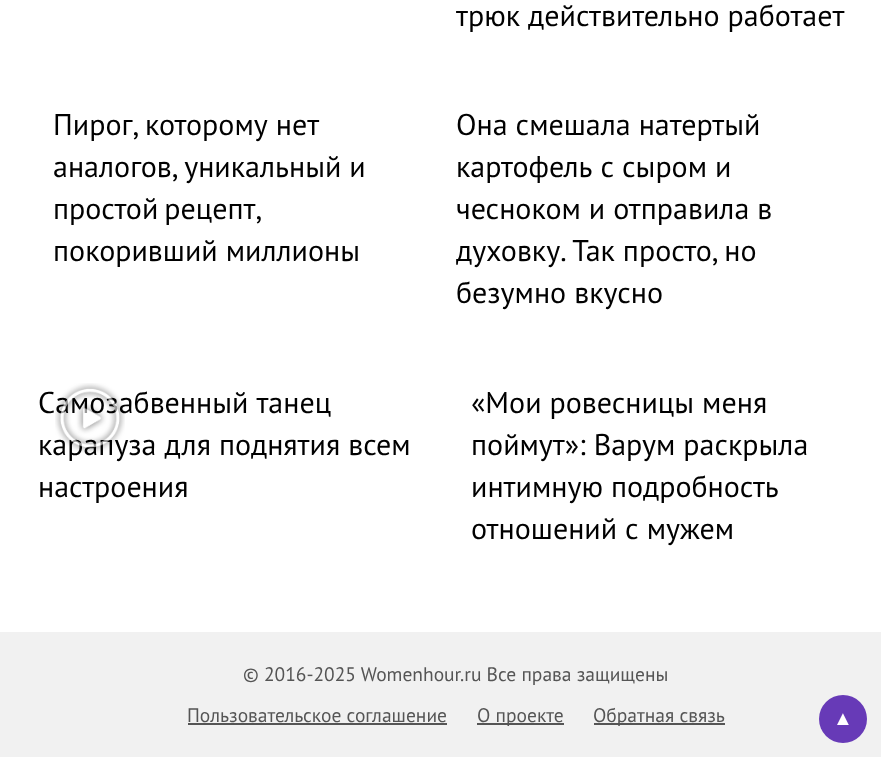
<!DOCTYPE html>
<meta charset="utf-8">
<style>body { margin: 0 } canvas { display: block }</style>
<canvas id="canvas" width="881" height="757"></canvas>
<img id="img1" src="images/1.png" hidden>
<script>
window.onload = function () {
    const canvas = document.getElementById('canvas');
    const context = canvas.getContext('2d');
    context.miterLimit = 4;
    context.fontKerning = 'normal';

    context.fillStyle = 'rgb(255, 255, 255)';
    context.fillRect(0, 0, 881, 757);
    context.fillStyle = 'rgb(241, 241, 241)';
    context.fillRect(0, 632, 881, 125);
    context.fillStyle = 'rgb(85, 85, 85)';
    context.fillRect(188, 723, 259, 2);
    context.fillRect(477, 723, 87, 2);
    context.fillRect(594, 723, 131, 2);
    context.fillStyle = 'rgb(103, 58, 183)';
    context.beginPath();
    context.arc(843, 719, 24, 0, 2 * Math.PI);
    context.fill();
    context.font = '30px PT Sans';
    context.fillStyle = 'rgb(0, 0, 0)';
    context.fillText('трюк действительно работает', 456, 26);
    context.fillText('Пирог, которому нет', 53, 135);
    context.fillText('аналогов, уникальный и', 53, 177);
    context.wordSpacing = '-2px';
    context.fillText('простой рецепт,', 53, 219);
    context.wordSpacing = '0px';
    context.fillText('покоривший миллионы', 53, 261);
    context.fillText('Она смешала натертый', 456, 135);
    context.fillText('картофель с сыром и', 456, 177);
    context.fillText('чесноком и отправила в', 456, 219);
    context.fillText('духовку. Так просто, но', 456, 261);
    context.fillText('безумно вкусно', 456, 303);
    context.fillText('Самозабвенный танец', 38, 413);
    context.fillText('карапуза для поднятия всем', 38, 455);
    context.drawImage(document.getElementById('img1'), 55, 383, 70, 70);
    context.fillText('настроения', 38, 497);
    context.fillText('«Мои ровесницы меня', 471, 413);
    context.fillText('поймут»: Варум раскрыла', 471, 455);
    context.fillText('интимную подробность', 471, 497);
    context.fillText('отношений с мужем', 471, 539);
    context.font = '19.5px PT Sans';
    context.fillStyle = 'rgb(85, 85, 85)';
    context.fillText('© 2016-2025 Womenhour.ru Все права защищены', 243, 681);
    context.fillText('Пользовательское соглашение', 187, 722);
    context.fillText('О проекте', 477, 722);
    context.fillText('Обратная связь', 593, 722);
    context.font = '20px Liberation Sans';
    context.fillStyle = 'rgb(255, 255, 255)';
    context.fillText('▲', 833, 725);
};
</script>
